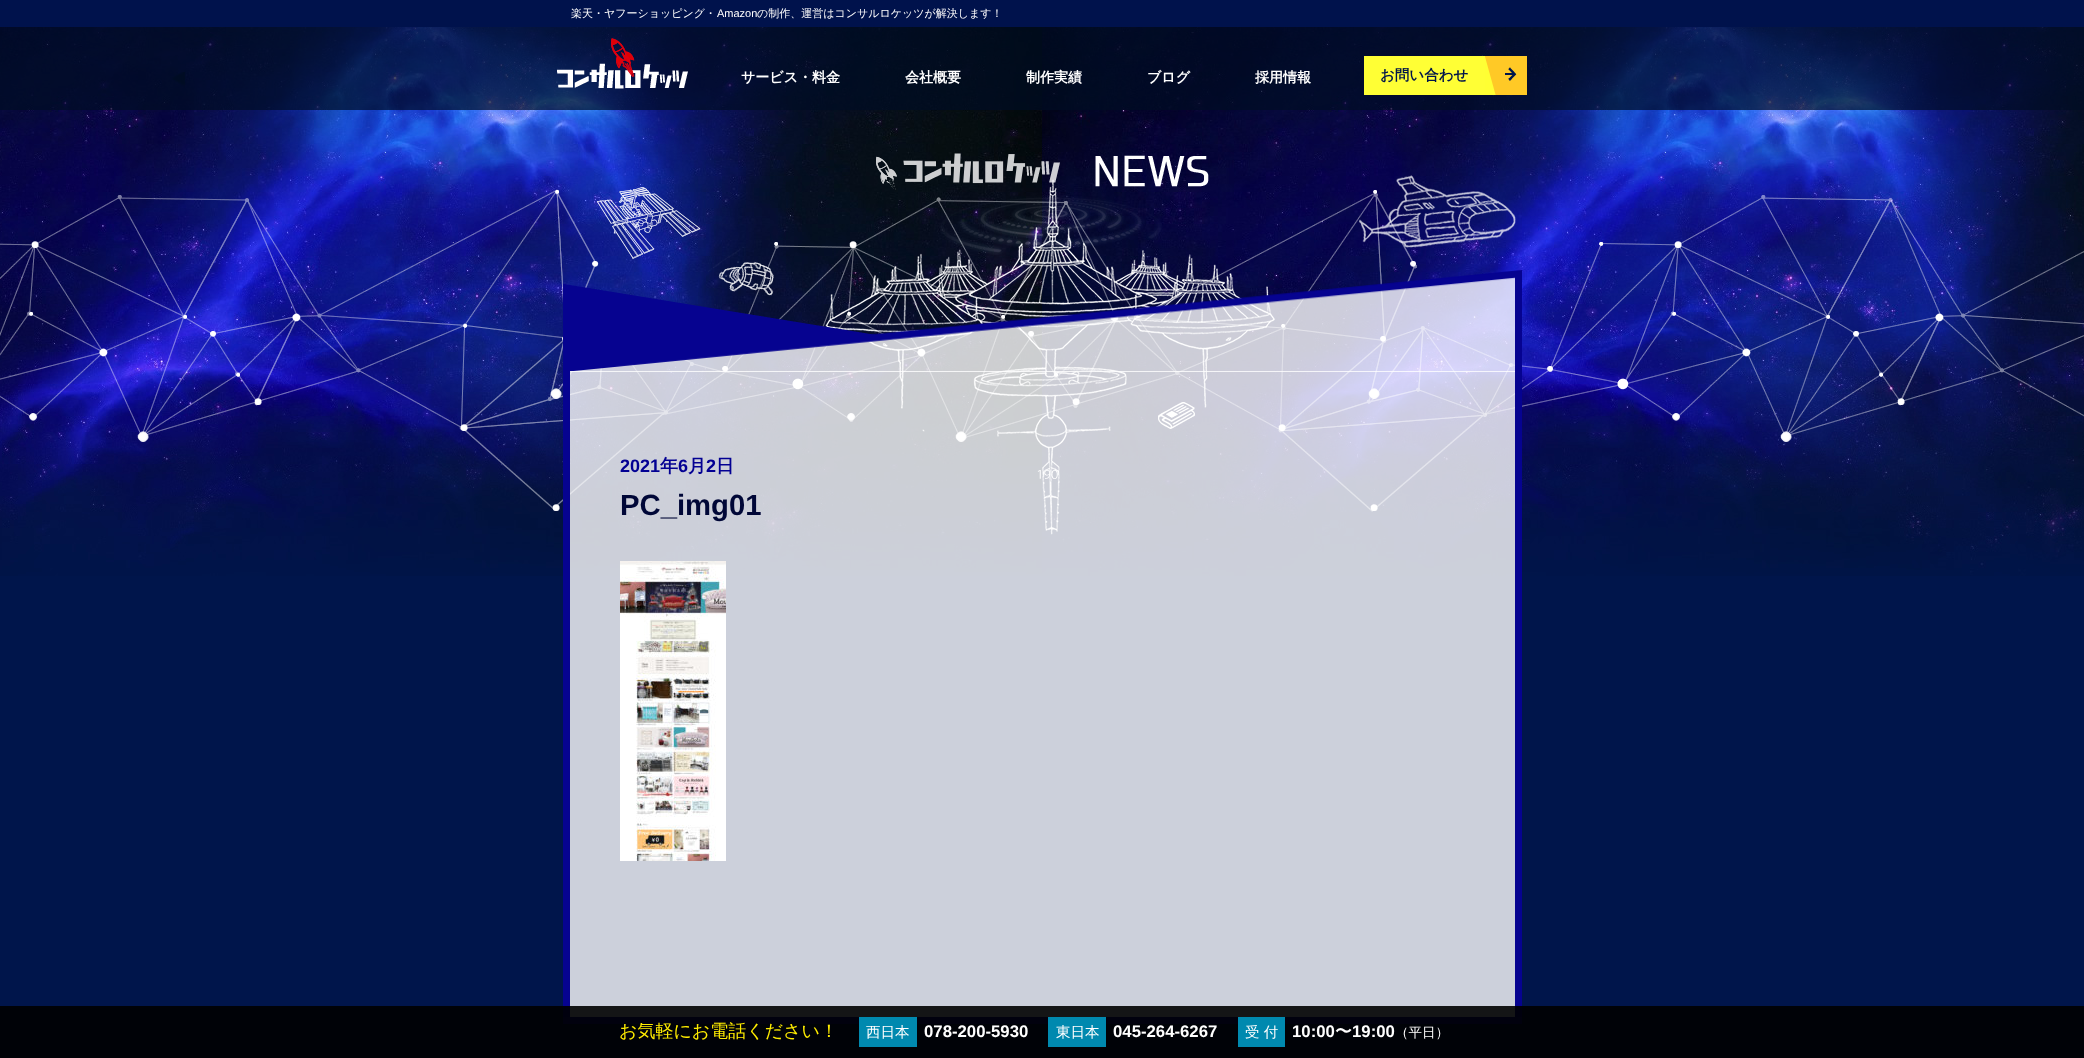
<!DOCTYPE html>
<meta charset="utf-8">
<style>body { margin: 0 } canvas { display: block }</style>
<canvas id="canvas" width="2084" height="1058"></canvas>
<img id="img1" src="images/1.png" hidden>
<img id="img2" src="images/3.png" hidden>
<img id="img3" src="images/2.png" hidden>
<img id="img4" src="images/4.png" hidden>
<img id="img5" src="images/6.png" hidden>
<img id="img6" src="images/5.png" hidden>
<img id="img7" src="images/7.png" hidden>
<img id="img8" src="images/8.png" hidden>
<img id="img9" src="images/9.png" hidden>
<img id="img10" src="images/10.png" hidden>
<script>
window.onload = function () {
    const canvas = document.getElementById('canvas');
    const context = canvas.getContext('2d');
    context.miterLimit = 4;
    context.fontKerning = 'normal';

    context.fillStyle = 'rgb(0, 21, 75)';
    context.fillRect(0, 0, 2084, 1058);
    context.drawImage(document.getElementById('img1'), 0, 27, 2084, 549);
    context.fillStyle = 'rgba(0, 13, 35, 0.7)';
    context.fillRect(0, 27, 2084, 83);
    context.fillStyle = 'rgb(0, 18, 76)';
    context.fillRect(0, 0, 2084, 27);
    context.drawImage(document.getElementById('img2'), 557, 63, 131, 26);
    context.drawImage(document.getElementById('img3'), 611, 38, 24, 39);
    context.fillStyle = 'rgb(255, 255, 53)';
    context.fillRect(1364, 56, 121, 39);
    context.drawImage(document.getElementById('img4'), 1485, 56, 42, 39);
    context.drawImage(document.getElementById('img5'), 0, 175, 2084, 360);
    context.drawImage(document.getElementById('img6'), 876, 153, 333, 37);
    context.drawImage(document.getElementById('img7'), 563, 270, 959, 102);
    context.drawImage(document.getElementById('img8'), 563, 284, 313, 52);
    context.fillStyle = 'rgb(10, 18, 141)';
    context.fillRect(563, 1017, 959, 7);
    context.drawImage(document.getElementById('img9'), 563, 371, 959, 646);
    context.drawImage(document.getElementById('img10'), 620, 561, 106, 300);
    context.fillStyle = 'rgba(0, 0, 0, 0.9)';
    context.fillRect(0, 1006, 2084, 52);
    context.fillStyle = 'rgb(0, 137, 175)';
    context.fillRect(859, 1017, 58, 30);
    context.fillRect(1048, 1017, 58, 30);
    context.fillRect(1238, 1017, 47, 30);
    context.font = '500 11px WenQuanYi Zen Hei';
    context.fillStyle = 'rgb(255, 255, 255)';
    context.fillText('楽天・ヤフーショッピング・', 571, 17);
    context.font = '11px Liberation Sans';
    context.fillText('Amazon', 717, 17);
    context.font = '500 11px WenQuanYi Zen Hei';
    context.fillText('の制作、運営はコンサルロケッツが解決します！', 757, 17);
    context.font = 'bold 14px WenQuanYi Zen Hei';
    context.fillText('サービス・料金', 741, 82);
    context.fillText('会社概要', 905, 82);
    context.fillText('制作実績', 1026, 82);
    context.fillText('ブログ', 1147, 82);
    context.fillText('採用情報', 1255, 82);
    context.font = 'bold 14.5px WenQuanYi Zen Hei';
    context.fillStyle = 'rgb(0, 21, 75)';
    context.fillText('お問い合わせ', 1380, 80);
    context.font = 'bold 18px Liberation Sans';
    context.fillStyle = 'rgb(3, 0, 147)';
    context.fillText('2021', 620, 472);
    context.font = 'bold 18px WenQuanYi Zen Hei';
    context.fillText('年', 660, 472);
    context.font = 'bold 18px Liberation Sans';
    context.fillText('6', 678, 472);
    context.font = 'bold 18px WenQuanYi Zen Hei';
    context.fillText('月', 688, 472);
    context.font = 'bold 18px Liberation Sans';
    context.fillText('2', 706, 472);
    context.font = 'bold 18px WenQuanYi Zen Hei';
    context.fillText('日', 716, 472);
    context.font = 'bold 29.25px Liberation Sans';
    context.fillStyle = 'rgb(0, 7, 55)';
    context.fillText('PC_img01', 620, 515);
    context.font = '500 18px WenQuanYi Zen Hei';
    context.fillStyle = 'rgb(255, 237, 0)';
    context.fillText('お気軽にお電話ください！', 619, 1037);
    context.font = '500 14.5px WenQuanYi Zen Hei';
    context.fillStyle = 'rgb(255, 255, 255)';
    context.fillText('西日本', 866, 1037);
    context.font = 'bold 16.75px Liberation Sans';
    context.fillText('078-200-5930', 924, 1037);
    context.font = '500 14.5px WenQuanYi Zen Hei';
    context.fillText('東日本', 1056, 1037);
    context.font = 'bold 16.75px Liberation Sans';
    context.fillText('045-264-6267', 1113, 1037);
    context.font = '500 14.5px WenQuanYi Zen Hei';
    context.fillText('受 付', 1245, 1037);
    context.font = 'bold 16.75px Liberation Sans';
    context.fillText('10:00', 1292, 1037);
    context.font = 'bold 16.75px WenQuanYi Zen Hei';
    context.fillText('〜', 1335, 1037);
    context.font = 'bold 16.75px Liberation Sans';
    context.fillText('19:00', 1352, 1037);
    context.font = '500 13.5px WenQuanYi Zen Hei';
    context.fillText('（平日）', 1395, 1037);
};
</script>
